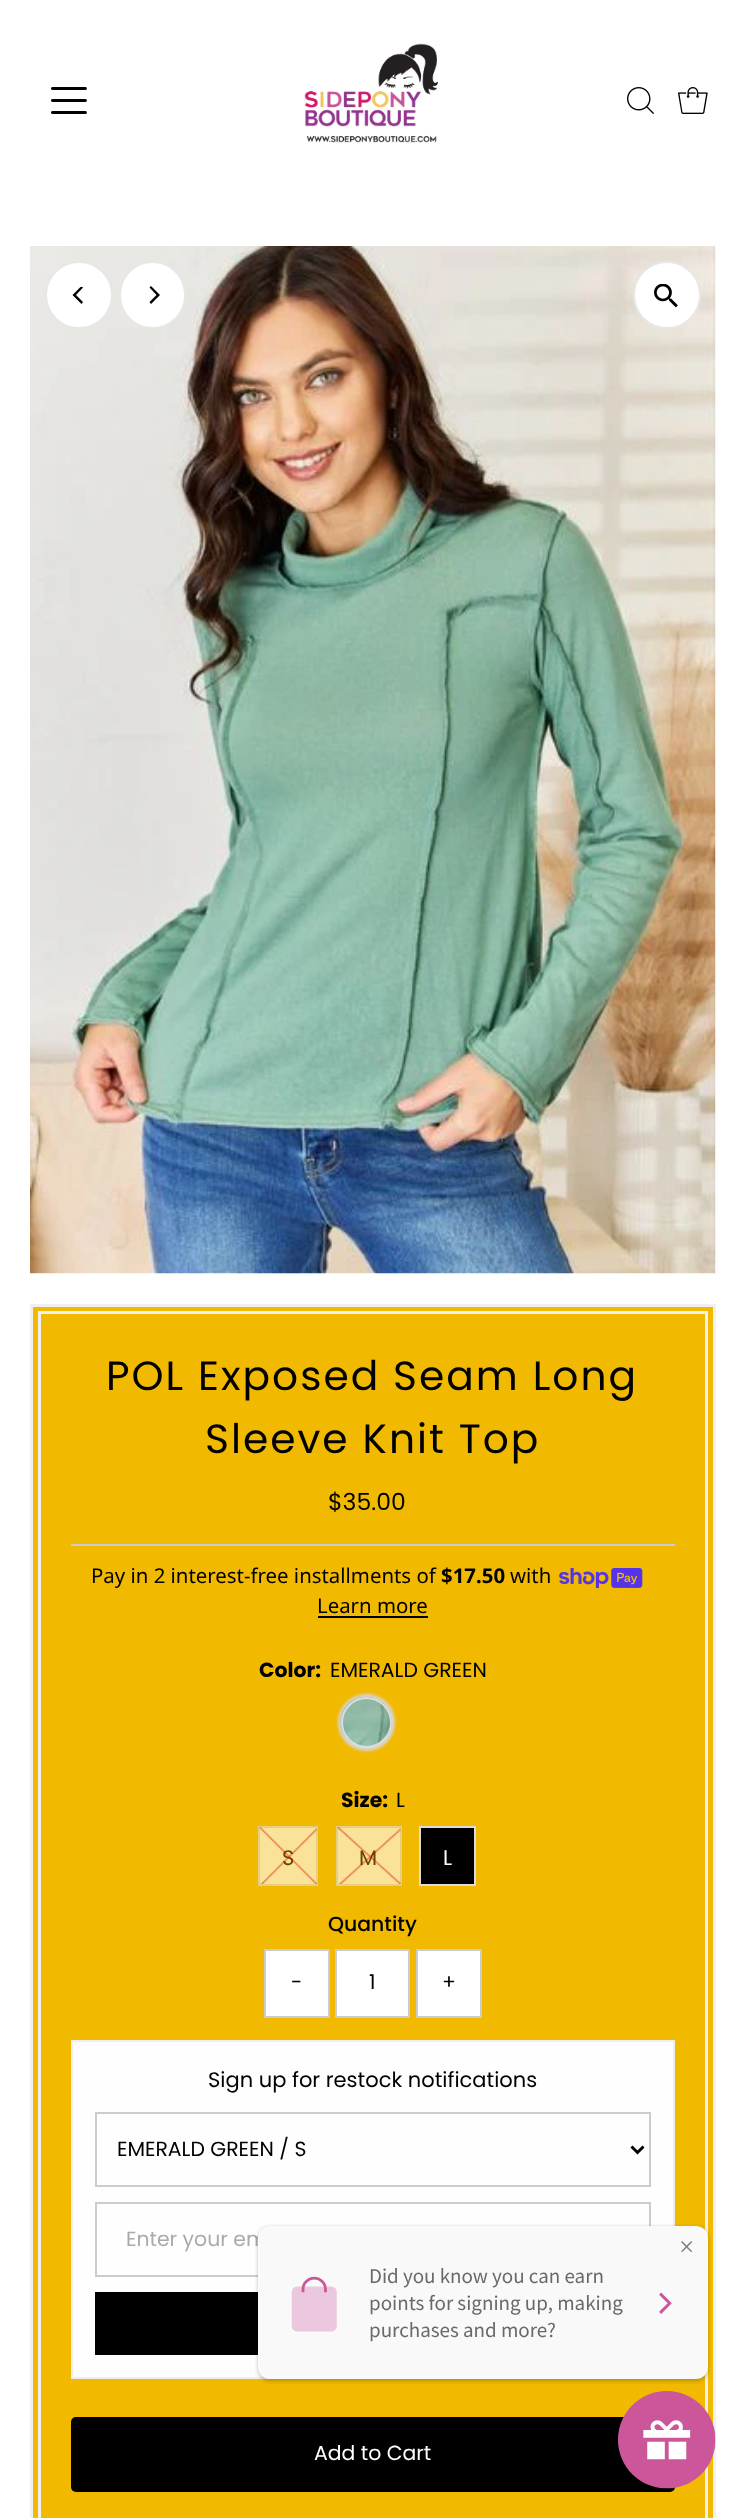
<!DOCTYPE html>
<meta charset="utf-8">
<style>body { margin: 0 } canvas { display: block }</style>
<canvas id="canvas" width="745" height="2518"></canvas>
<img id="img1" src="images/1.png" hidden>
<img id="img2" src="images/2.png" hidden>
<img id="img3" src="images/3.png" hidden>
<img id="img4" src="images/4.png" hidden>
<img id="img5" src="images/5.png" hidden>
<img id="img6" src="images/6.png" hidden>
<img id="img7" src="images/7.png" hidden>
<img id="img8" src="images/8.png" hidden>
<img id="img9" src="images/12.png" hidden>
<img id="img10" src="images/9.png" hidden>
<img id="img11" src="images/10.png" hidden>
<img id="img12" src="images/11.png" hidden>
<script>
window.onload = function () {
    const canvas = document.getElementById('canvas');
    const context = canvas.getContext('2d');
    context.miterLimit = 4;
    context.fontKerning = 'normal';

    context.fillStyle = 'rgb(255, 255, 255)';
    context.fillRect(0, 0, 745, 2518);
    context.drawImage(document.getElementById('img1'), 51, 87, 36, 27);
    context.drawImage(document.getElementById('img2'), 304, 43, 134, 100);
    context.drawImage(document.getElementById('img3'), 627, 87, 27, 27);
    context.drawImage(document.getElementById('img4'), 678, 87, 30, 27);
    context.drawImage(document.getElementById('img5'), 30, 246, 686, 1028);
    context.beginPath();
    context.arc(667, 295, 33, 0, 2 * Math.PI);
    context.fill();
    context.strokeStyle = 'rgb(231, 231, 231)';
    context.lineWidth = 2;
    context.stroke();
    context.drawImage(document.getElementById('img6'), 654, 284, 24, 24);
    context.beginPath();
    context.arc(79, 295, 33, 0, 2 * Math.PI);
    context.fill();
    context.stroke();
    context.save();
    context.beginPath();
    context.rect(71, 287, 18, 18);
    context.clip();
    context.fillStyle = 'rgb(0, 0, 0)';
    context.beginPath();
    context.moveTo(72.5, 295);
    context.lineTo(81.5, 304);
    context.lineTo(83, 302);
    context.lineTo(76, 295);
    context.lineTo(83, 287.5);
    context.lineTo(81.5, 286);
    context.closePath();
    context.fill();
    context.restore();
    context.beginPath();
    context.roundRect(120, 262, 65, 66, 32.5);
    context.fill();
    context.stroke();
    context.fillStyle = 'rgb(0, 0, 0)';
    context.beginPath();
    context.moveTo(160, 295);
    context.lineTo(151, 286);
    context.lineTo(149.5, 287.5);
    context.lineTo(156.5, 295);
    context.lineTo(149.5, 302);
    context.lineTo(151, 304);
    context.closePath();
    context.fill();
    context.fillStyle = 'rgb(242, 185, 1)';
    context.beginPath();
    context.rect(31.5, 1305.5, 683, 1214);
    context.fill();
    context.strokeStyle = 'rgb(240, 240, 240)';
    context.lineWidth = 3;
    context.stroke();
    context.strokeRect(39.5, 1312.5, 667, 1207);
    context.fillStyle = 'rgb(204, 204, 204)';
    context.fillRect(71, 1544, 604, 2);
    context.drawImage(document.getElementById('img7'), 559, 1568, 84, 21);
    context.fillStyle = 'rgb(0, 0, 0)';
    context.fillRect(318, 1616, 110, 2);
    context.fillStyle = 'rgb(214, 214, 214)';
    context.filter = 'blur(1.5px)';
    context.beginPath();
    context.roundRect(338, 1694, 57, 57, 28.5);
    context.fill();
    context.filter = 'none';
    context.drawImage(document.getElementById('img8'), 340, 1696, 52, 52);
    context.beginPath();
    context.arc(366.5, 1722.5, 24.5, 0, 2 * Math.PI);
    context.strokeStyle = 'rgb(221, 221, 221)';
    context.lineWidth = 2;
    context.stroke();
    context.fillStyle = 'rgb(250, 227, 153)';
    context.beginPath();
    context.rect(259, 1827, 58, 58);
    context.fill();
    context.strokeStyle = 'rgb(229, 207, 133)';
    context.stroke();
    context.beginPath();
    context.rect(337, 1827, 64, 58);
    context.fill();
    context.stroke();
    context.fillStyle = 'rgb(0, 0, 0)';
    context.beginPath();
    context.rect(420, 1827, 55, 58);
    context.fill();
    context.strokeStyle = 'rgb(221, 221, 221)';
    context.stroke();
    context.fillStyle = 'rgb(255, 255, 255)';
    context.beginPath();
    context.rect(265, 1950, 64, 67);
    context.fill();
    context.strokeStyle = 'rgb(204, 204, 204)';
    context.stroke();
    context.beginPath();
    context.rect(336, 1950, 73, 67);
    context.fill();
    context.stroke();
    context.beginPath();
    context.rect(417, 1950, 64, 67);
    context.fill();
    context.stroke();
    context.fillStyle = 'rgb(254, 254, 254)';
    context.beginPath();
    context.rect(72, 2041, 602, 337);
    context.fill();
    context.strokeStyle = 'rgb(238, 238, 238)';
    context.stroke();
    context.strokeStyle = 'rgb(204, 204, 204)';
    context.strokeRect(96, 2113, 554, 73);
    context.beginPath();
    context.moveTo(631.5, 2146.5);
    context.lineTo(637.5, 2152.5);
    context.lineTo(643.5, 2146.5);
    context.strokeStyle = 'rgb(0, 0, 0)';
    context.lineWidth = 3;
    context.stroke();
    context.strokeStyle = 'rgb(204, 204, 204)';
    context.lineWidth = 2;
    context.strokeRect(96, 2203, 554, 73);
    context.fillStyle = 'rgb(0, 0, 0)';
    context.fillRect(95, 2292, 163, 63);
    context.beginPath();
    context.roundRect(71, 2417, 604, 75, 5);
    context.fill();
    context.drawImage(document.getElementById('img9'), 618, 2391, 98, 98);
    context.letterSpacing = '2px';
    context.font = '40.75px Poppins';
    context.fillText('POL Exposed Seam Long', 106, 1390);
    context.fillText('Sleeve Knit Top', 205, 1453);
    context.letterSpacing = '0px';
    context.font = '23.5px Poppins';
    context.fillText('$35.00', 328, 1510);
    context.font = '20.4px Noto Sans';
    context.fillText('Pay in 2 interest-free installments of', 91, 1583);
    context.font = 'bold 20.4px Noto Sans';
    context.fillText('$17.50', 441, 1583);
    context.font = '20.4px Noto Sans';
    context.fillText('with', 510, 1583);
    context.fillText('Learn more', 317, 1613);
    context.font = 'bold 20.4px Poppins';
    context.fillText('Color:', 259, 1677);
    context.font = '20.4px Poppins';
    context.fillText('EMERALD GREEN', 330, 1677);
    context.font = 'bold 20.4px Poppins';
    context.fillText('Size:', 341, 1807);
    context.font = '20.4px Poppins';
    context.fillText('L', 396, 1807);
    context.font = '21px Poppins';
    context.fillStyle = 'rgb(97, 74, 0)';
    context.fillText('S', 282, 1865);
    context.drawImage(document.getElementById('img10'), 259, 1827, 58, 57);
    context.fillText('M', 359, 1865);
    context.drawImage(document.getElementById('img11'), 337, 1827, 64, 57);
    context.fillStyle = 'rgb(255, 255, 255)';
    context.fillText('L', 443, 1865);
    context.font = '500 20.4px Poppins';
    context.fillStyle = 'rgb(0, 0, 0)';
    context.fillText('Quantity', 328, 1931);
    context.font = '20.4px Poppins';
    context.fillText('-', 291, 1989);
    context.fillText('1', 369, 1989);
    context.fillText('+', 442, 1989);
    context.font = '21px Poppins';
    context.fillText('Sign up for restock notifications', 208, 2087);
    context.font = '20.4px Poppins';
    context.fillText('EMERALD GREEN / S', 117, 2156);
    context.fillStyle = 'rgb(170, 170, 170)';
    context.fillText('Enter your em', 126, 2246);
    context.fillStyle = 'rgb(255, 255, 255)';
    context.fillText('Add to Cart', 314, 2460);
    context.drawImage(document.getElementById('img12'), 255, 2224, 456, 160);
};
</script>
